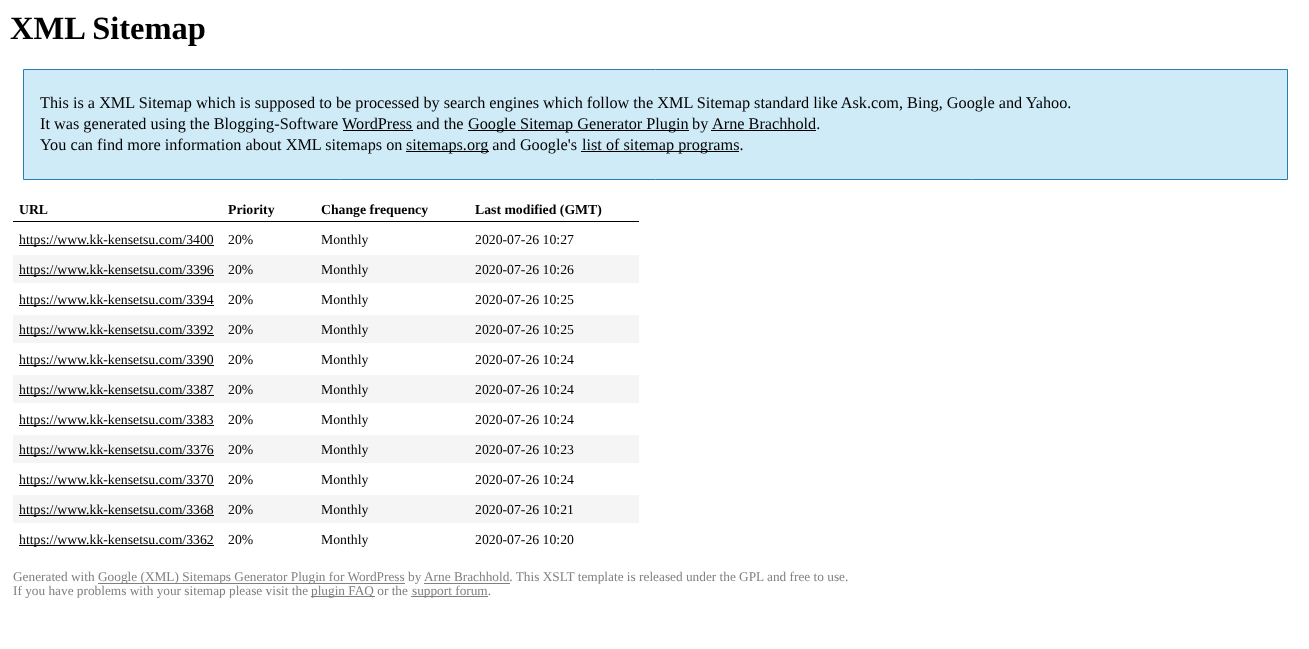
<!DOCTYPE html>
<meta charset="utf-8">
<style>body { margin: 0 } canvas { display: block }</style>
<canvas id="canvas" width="1309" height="649"></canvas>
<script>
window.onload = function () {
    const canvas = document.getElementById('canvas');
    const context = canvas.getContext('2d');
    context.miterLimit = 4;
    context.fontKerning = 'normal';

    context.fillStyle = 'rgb(255, 255, 255)';
    context.fillRect(0, 0, 1309, 649);
    context.fillStyle = 'rgb(207, 235, 247)';
    context.beginPath();
    context.rect(23.5, 69.5, 1264, 110);
    context.fill();
    context.strokeStyle = 'rgb(37, 128, 178)';
    context.stroke();
    context.fillStyle = 'rgb(0, 0, 0)';
    context.fillRect(468, 130, 221, 1);
    context.fillRect(711, 130, 105, 1);
    context.fillRect(343, 130, 70, 1);
    context.fillRect(406, 151, 83, 1);
    context.fillRect(581, 151, 158, 1);
    context.fillRect(13, 221, 626, 1);
    context.fillRect(19, 245, 195, 1);
    context.fillStyle = 'rgb(245, 245, 245)';
    context.fillRect(13, 255, 626, 28);
    context.fillStyle = 'rgb(0, 0, 0)';
    context.fillRect(19, 275, 195, 1);
    context.fillRect(19, 305, 195, 1);
    context.fillStyle = 'rgb(245, 245, 245)';
    context.fillRect(13, 315, 626, 28);
    context.fillStyle = 'rgb(0, 0, 0)';
    context.fillRect(19, 335, 195, 1);
    context.fillRect(19, 365, 195, 1);
    context.fillStyle = 'rgb(245, 245, 245)';
    context.fillRect(13, 375, 626, 28);
    context.fillStyle = 'rgb(0, 0, 0)';
    context.fillRect(19, 395, 195, 1);
    context.fillRect(19, 425, 195, 1);
    context.fillStyle = 'rgb(245, 245, 245)';
    context.fillRect(13, 435, 626, 28);
    context.fillStyle = 'rgb(0, 0, 0)';
    context.fillRect(19, 455, 195, 1);
    context.fillRect(19, 485, 195, 1);
    context.fillStyle = 'rgb(245, 245, 245)';
    context.fillRect(13, 495, 626, 28);
    context.fillStyle = 'rgb(0, 0, 0)';
    context.fillRect(19, 515, 195, 1);
    context.fillRect(19, 545, 195, 1);
    context.fillStyle = 'rgb(128, 128, 128)';
    context.fillRect(98, 583, 307, 1);
    context.fillRect(424, 583, 86, 1);
    context.fillRect(311, 596, 64, 1);
    context.fillRect(411, 596, 77, 1);
    context.font = 'bold 32.5px Liberation Serif';
    context.fillStyle = 'rgb(0, 0, 0)';
    context.fillText('XML Sitemap', 10, 39);
    context.font = '16.25px Liberation Serif';
    context.fillText('This is a XML Sitemap which is supposed to be processed by search engines which follow the XML Sitemap standard like Ask.com, Bing, Google and Yahoo.', 40, 108);
    context.fillText('It was generated using the Blogging-Software WordPress and the', 40, 129);
    context.fillText('Google Sitemap Generator Plugin', 468, 129);
    context.fillText('by', 692, 129);
    context.fillText('Arne Brachhold.', 712, 129);
    context.fillText('You can find more information about XML sitemaps on', 40, 150);
    context.fillText('sitemaps.org and Google\'s', 406, 150);
    context.fillText('list of sitemap programs.', 582, 150);
    context.font = 'bold 13.75px Liberation Serif';
    context.fillText('URL', 19, 214);
    context.fillText('Priority', 228, 214);
    context.fillText('Change frequency', 321, 214);
    context.fillText('Last modified (GMT)', 475, 214);
    context.font = '13.75px Liberation Serif';
    context.fillText('https://www.kk-kensetsu.com/3400', 19, 244);
    context.fillText('20%', 228, 244);
    context.fillText('Monthly', 321, 244);
    context.fillText('2020-07-26 10:27', 475, 244);
    context.fillText('https://www.kk-kensetsu.com/3396', 19, 274);
    context.fillText('20%', 228, 274);
    context.fillText('Monthly', 321, 274);
    context.fillText('2020-07-26 10:26', 475, 274);
    context.fillText('https://www.kk-kensetsu.com/3394', 19, 304);
    context.fillText('20%', 228, 304);
    context.fillText('Monthly', 321, 304);
    context.fillText('2020-07-26 10:25', 475, 304);
    context.fillText('https://www.kk-kensetsu.com/3392', 19, 334);
    context.fillText('20%', 228, 334);
    context.fillText('Monthly', 321, 334);
    context.fillText('2020-07-26 10:25', 475, 334);
    context.fillText('https://www.kk-kensetsu.com/3390', 19, 364);
    context.fillText('20%', 228, 364);
    context.fillText('Monthly', 321, 364);
    context.fillText('2020-07-26 10:24', 475, 364);
    context.fillText('https://www.kk-kensetsu.com/3387', 19, 394);
    context.fillText('20%', 228, 394);
    context.fillText('Monthly', 321, 394);
    context.fillText('2020-07-26 10:24', 475, 394);
    context.fillText('https://www.kk-kensetsu.com/3383', 19, 424);
    context.fillText('20%', 228, 424);
    context.fillText('Monthly', 321, 424);
    context.fillText('2020-07-26 10:24', 475, 424);
    context.fillText('https://www.kk-kensetsu.com/3376', 19, 454);
    context.fillText('20%', 228, 454);
    context.fillText('Monthly', 321, 454);
    context.fillText('2020-07-26 10:23', 475, 454);
    context.fillText('https://www.kk-kensetsu.com/3370', 19, 484);
    context.fillText('20%', 228, 484);
    context.fillText('Monthly', 321, 484);
    context.fillText('2020-07-26 10:24', 475, 484);
    context.fillText('https://www.kk-kensetsu.com/3368', 19, 514);
    context.fillText('20%', 228, 514);
    context.fillText('Monthly', 321, 514);
    context.fillText('2020-07-26 10:21', 475, 514);
    context.fillText('https://www.kk-kensetsu.com/3362', 19, 544);
    context.fillText('20%', 228, 544);
    context.fillText('Monthly', 321, 544);
    context.fillText('2020-07-26 10:20', 475, 544);
    context.font = '13.3px Liberation Serif';
    context.fillStyle = 'rgb(128, 128, 128)';
    context.fillText('Generated with', 13, 581);
    context.fillText('Google (XML) Sitemaps Generator Plugin for WordPress', 98, 581);
    context.fillText('by', 408, 581);
    context.fillText('Arne Brachhold. This XSLT template is released under the GPL and free to use.', 424, 581);
    context.fillText('If you have problems with your sitemap please visit the', 13, 595);
    context.fillText('plugin FAQ or the', 311, 595);
    context.fillText('support forum.', 412, 595);
};
</script>
